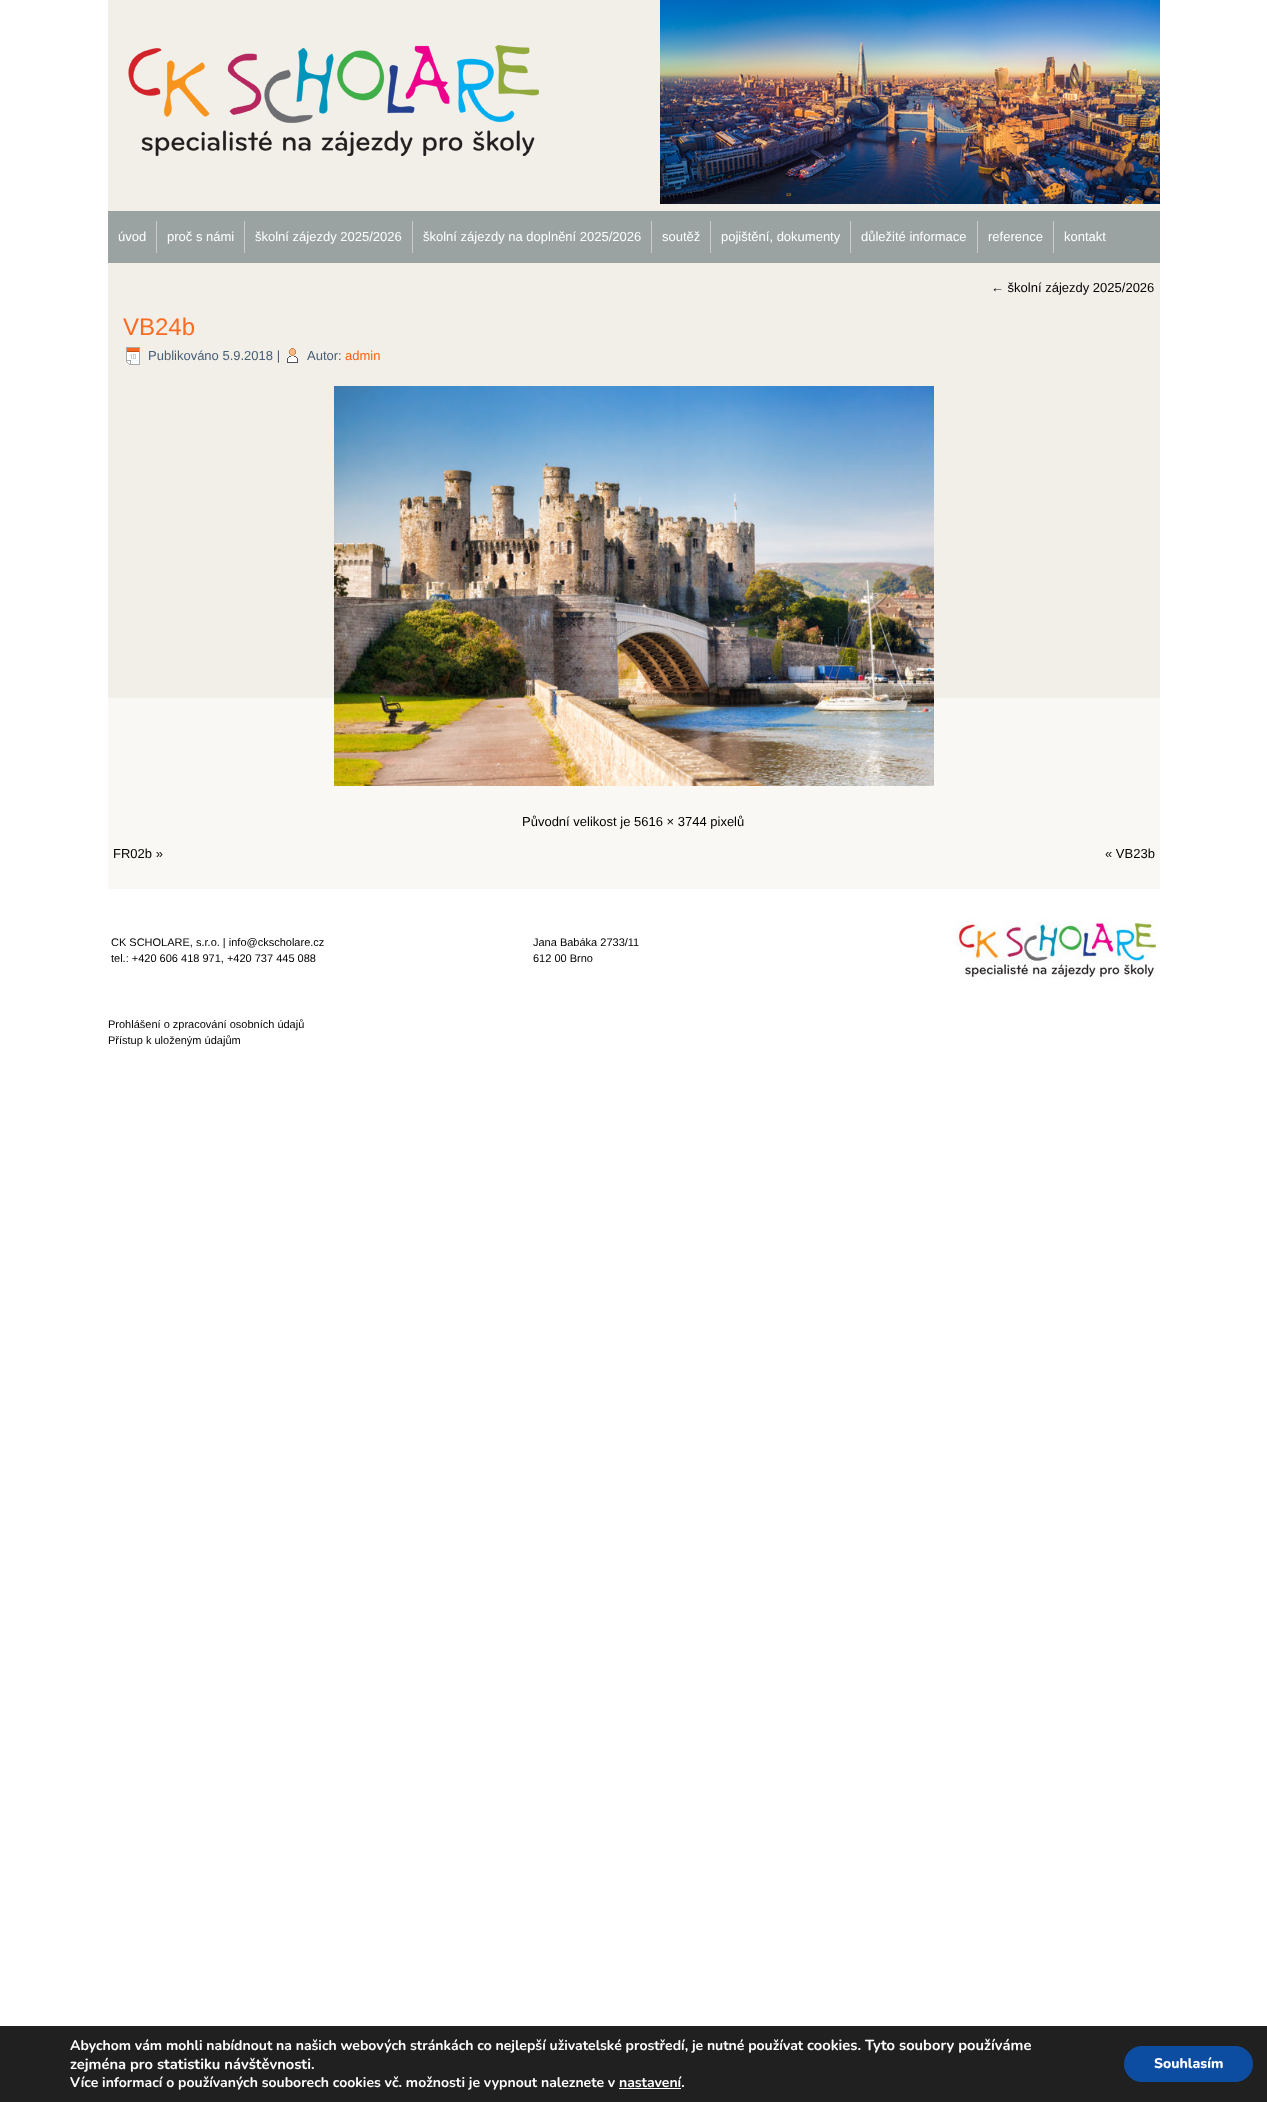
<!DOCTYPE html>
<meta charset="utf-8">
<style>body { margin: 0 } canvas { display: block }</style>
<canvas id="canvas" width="1267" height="2102"></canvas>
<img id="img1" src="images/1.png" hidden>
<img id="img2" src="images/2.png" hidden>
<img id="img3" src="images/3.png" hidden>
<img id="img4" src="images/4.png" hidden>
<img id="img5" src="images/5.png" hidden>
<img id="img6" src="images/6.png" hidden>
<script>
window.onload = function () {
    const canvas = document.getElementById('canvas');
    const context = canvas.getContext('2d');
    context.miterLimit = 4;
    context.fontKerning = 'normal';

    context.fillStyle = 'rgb(255, 255, 255)';
    context.fillRect(0, 0, 1267, 2102);
    context.drawImage(document.getElementById('img1'), 108, 0, 1052, 211);
    context.drawImage(document.getElementById('img2'), 128, 45, 411, 111);
    context.fillStyle = 'rgb(154, 163, 162)';
    context.fillRect(108, 211, 1052, 52);
    context.fillStyle = 'rgb(199, 204, 204)';
    context.fillRect(156, 221, 1, 32);
    context.fillRect(244, 221, 1, 32);
    context.fillRect(412, 221, 1, 32);
    context.fillRect(651, 221, 1, 32);
    context.fillRect(710, 221, 1, 32);
    context.fillRect(850, 221, 1, 32);
    context.fillRect(977, 221, 1, 32);
    context.fillRect(1053, 221, 1, 32);
    context.fillStyle = 'rgb(249, 248, 245)';
    context.fillRect(108, 698, 1052, 191);
    context.fillStyle = 'rgb(242, 239, 232)';
    context.fillRect(108, 263, 1052, 435);
    context.drawImage(document.getElementById('img3'), 126, 347, 14, 18);
    context.drawImage(document.getElementById('img4'), 287, 348, 11, 15);
    context.drawImage(document.getElementById('img5'), 334, 386, 600, 400);
    context.drawImage(document.getElementById('img6'), 954, 917, 205, 63);
    context.fillStyle = 'rgb(32, 32, 32)';
    context.fillRect(0, 2026, 1267, 76);
    context.fillStyle = 'rgb(255, 255, 255)';
    context.fillRect(619, 2088, 62, 1);
    context.fillStyle = 'rgb(12, 77, 162)';
    context.beginPath();
    context.roundRect(1124, 2046, 129, 36, 18);
    context.fill();
    context.font = '13px Liberation Sans';
    context.fillStyle = 'rgb(255, 255, 255)';
    context.fillText('úvod', 118, 241);
    context.fillText('proč s námi', 167, 241);
    context.fillText('školní zájezdy 2025/2026', 255, 241);
    context.fillText('školní zájezdy na doplnění 2025/2026', 423, 241);
    context.fillText('soutěž', 662, 241);
    context.fillText('pojištění, dokumenty', 721, 241);
    context.fillText('důležité informace', 861, 241);
    context.fillText('reference', 988, 241);
    context.fillText('kontakt', 1064, 241);
    context.fillStyle = 'rgb(0, 0, 0)';
    context.fillText('← školní zájezdy 2025/2026', 991, 292);
    context.font = '24px Liberation Sans';
    context.fillStyle = 'rgb(251, 107, 35)';
    context.fillText('VB24b', 123, 335);
    context.font = '13px Liberation Sans';
    context.fillStyle = 'rgb(71, 94, 118)';
    context.fillText('Publikováno 5.9.2018 |', 148, 360);
    context.fillText('Autor:', 307, 360);
    context.fillStyle = 'rgb(250, 97, 20)';
    context.fillText('admin', 345, 360);
    context.fillStyle = 'rgb(0, 0, 0)';
    context.fillText('Původní velikost je 5616 × 3744 pixelů', 522, 826);
    context.fillText('FR02b »', 113, 858);
    context.fillText('« VB23b', 1105, 858);
    context.font = '11px Liberation Sans';
    context.fillText('CK SCHOLARE, s.r.o. | info@ckscholare.cz', 111, 946);
    context.fillText('tel.: +420 606 418 971, +420 737 445 088', 111, 962);
    context.fillText('Jana Babáka 2733/11', 533, 946);
    context.fillText('612 00 Brno', 533, 962);
    context.fillText('Prohlášení o zpracování osobních údajů', 108, 1028);
    context.fillText('Přístup k uloženým údajům', 108, 1044);
    context.font = 'bold 14px Nunito';
    context.fillStyle = 'rgb(255, 255, 255)';
    context.fillText('Abychom vám mohli nabídnout na našich webových stránkách co nejlepší uživatelské prostředí, je nutné používat', 70, 2050);
    context.font = 'bold 14.7px Nunito';
    context.fillText('cookies. Tyto soubory používáme', 807, 2050);
    context.fillText('zejména pro statistiku návštěvnosti.', 70, 2069);
    context.font = 'bold 14px Nunito';
    context.fillText('Více informací o používaných souborech cookies vč. možnosti je vypnout naleznete v nastavení.', 70, 2087);
    context.font = '800 14px Nunito';
    context.fillText('Souhlasím', 1154, 2068);
};
</script>
